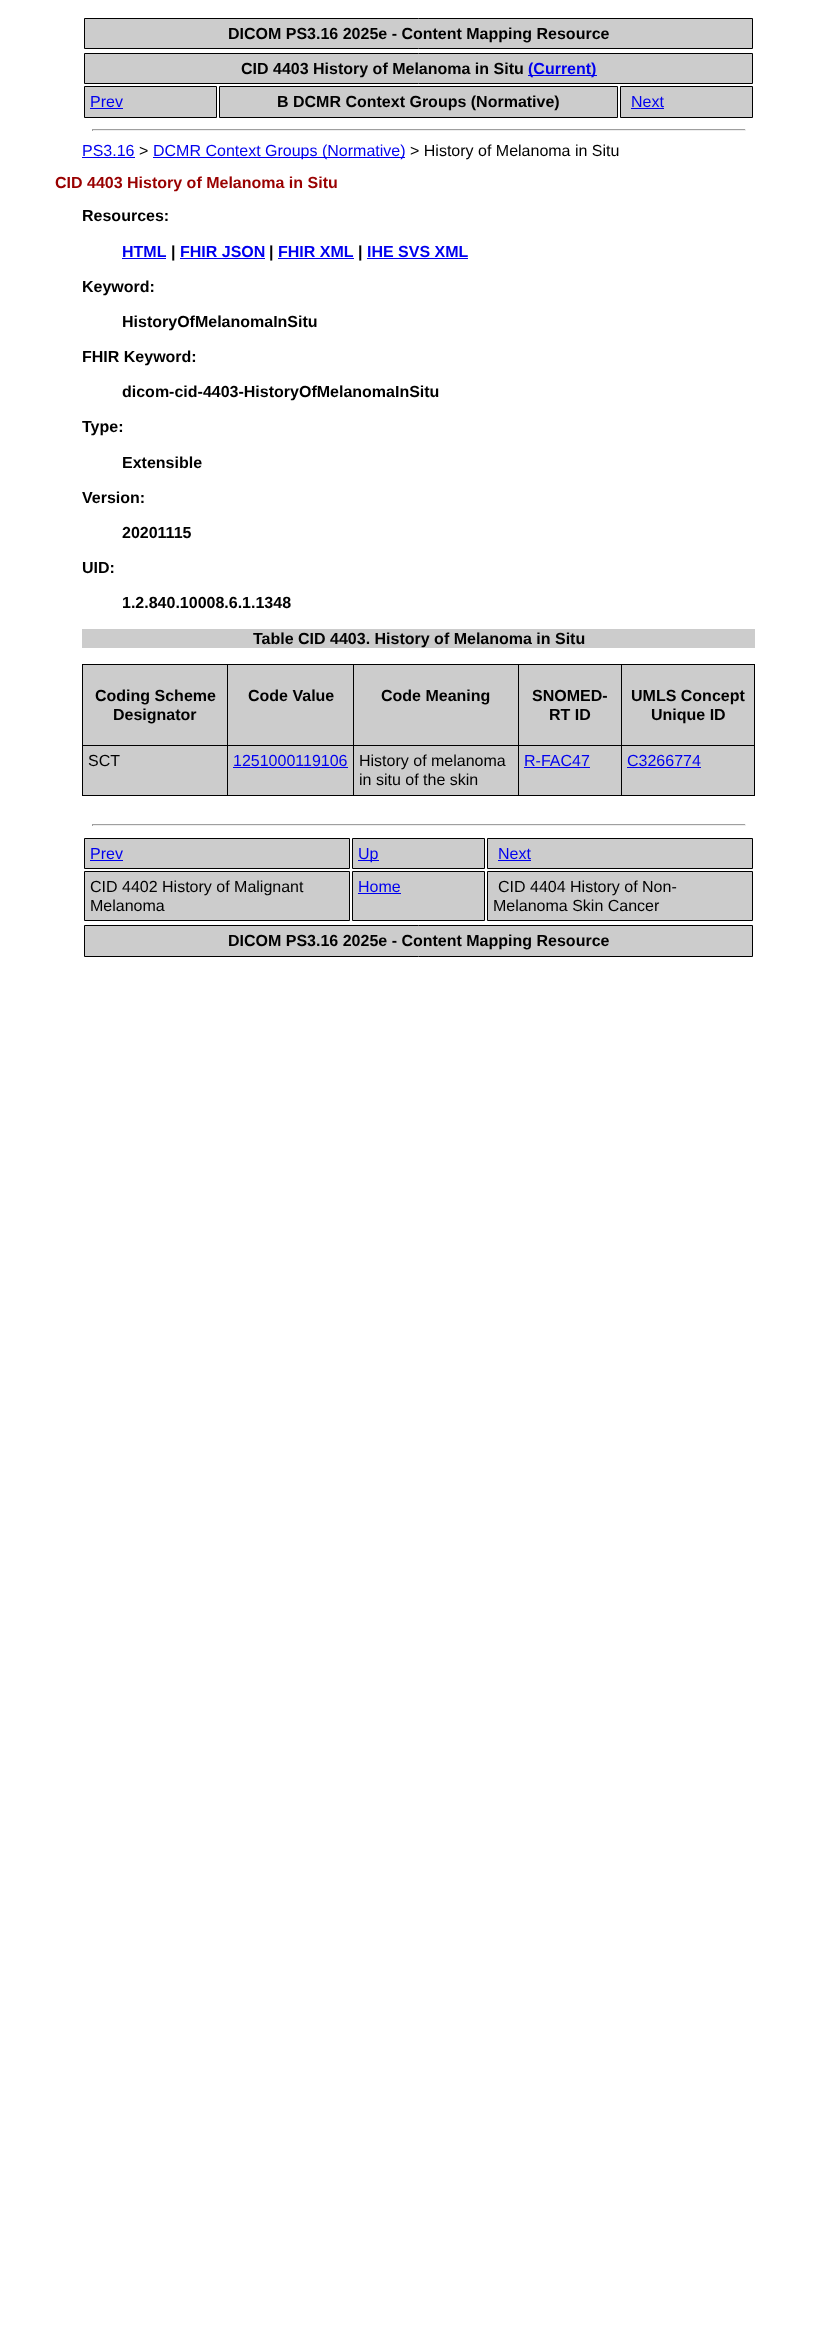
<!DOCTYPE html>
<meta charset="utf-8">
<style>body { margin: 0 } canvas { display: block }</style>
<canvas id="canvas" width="821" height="2326"></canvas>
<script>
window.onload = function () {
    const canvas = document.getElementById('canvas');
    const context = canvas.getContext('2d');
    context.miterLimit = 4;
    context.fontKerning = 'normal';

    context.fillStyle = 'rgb(255, 255, 255)';
    context.fillRect(0, 0, 821, 2326);
    context.fillStyle = 'rgb(204, 204, 204)';
    context.beginPath();
    context.rect(84.5, 18.5, 668, 30);
    context.fill();
    context.strokeStyle = 'rgb(0, 0, 0)';
    context.stroke();
    context.beginPath();
    context.rect(84.5, 53.5, 668, 30);
    context.fill();
    context.stroke();
    context.fillStyle = 'rgb(0, 0, 238)';
    context.fillRect(528, 75, 69, 1);
    context.fillStyle = 'rgb(204, 204, 204)';
    context.beginPath();
    context.rect(84.5, 86.5, 132, 31);
    context.fill();
    context.stroke();
    context.fillStyle = 'rgb(0, 0, 238)';
    context.fillRect(90, 108, 33, 1);
    context.fillStyle = 'rgb(204, 204, 204)';
    context.beginPath();
    context.rect(219.5, 86.5, 398, 31);
    context.fill();
    context.stroke();
    context.beginPath();
    context.rect(620.5, 86.5, 132, 31);
    context.fill();
    context.stroke();
    context.fillStyle = 'rgb(0, 0, 238)';
    context.fillRect(631, 108, 33, 1);
    context.fillStyle = 'rgb(159, 159, 159)';
    context.fillRect(92, 129, 654, 1);
    context.fillStyle = 'rgb(238, 238, 238)';
    context.fillRect(745, 129, 1, 2);
    context.fillRect(92, 130, 654, 1);
    context.fillStyle = 'rgb(159, 159, 159)';
    context.fillRect(92, 129, 1, 2);
    context.fillStyle = 'rgb(0, 0, 238)';
    context.fillRect(82, 157, 53, 1);
    context.fillRect(153, 157, 252, 1);
    context.fillRect(122, 258, 44, 1);
    context.fillRect(180, 258, 85, 1);
    context.fillRect(278, 258, 76, 1);
    context.fillRect(367, 258, 101, 1);
    context.fillStyle = 'rgb(204, 204, 204)';
    context.fillRect(82, 629, 673, 19);
    context.fillRect(83, 665, 144, 80);
    context.fillStyle = 'rgb(0, 0, 0)';
    context.fillRect(621, 664, 134, 1);
    context.fillRect(621, 745, 134, 1);
    context.fillRect(754, 745, 1, 51);
    context.fillRect(621, 795, 134, 1);
    context.fillRect(621, 745, 1, 51);
    context.fillRect(518, 745, 104, 1);
    context.fillRect(621, 664, 1, 82);
    context.fillRect(518, 664, 104, 1);
    context.fillRect(518, 795, 104, 1);
    context.fillRect(518, 745, 1, 51);
    context.fillRect(353, 745, 166, 1);
    context.fillRect(518, 664, 1, 82);
    context.fillRect(353, 664, 166, 1);
    context.fillRect(353, 795, 166, 1);
    context.fillRect(353, 745, 1, 51);
    context.fillRect(227, 745, 127, 1);
    context.fillRect(353, 664, 1, 82);
    context.fillRect(227, 664, 127, 1);
    context.fillRect(227, 795, 127, 1);
    context.fillRect(227, 745, 1, 51);
    context.fillRect(82, 745, 146, 1);
    context.fillRect(227, 664, 1, 82);
    context.fillRect(82, 664, 146, 1);
    context.fillRect(82, 795, 146, 1);
    context.fillRect(82, 745, 1, 51);
    context.fillRect(82, 664, 1, 82);
    context.fillStyle = 'rgb(204, 204, 204)';
    context.fillRect(228, 665, 125, 80);
    context.fillRect(354, 665, 164, 80);
    context.fillRect(519, 665, 102, 80);
    context.fillRect(622, 665, 132, 80);
    context.fillStyle = 'rgb(0, 0, 0)';
    context.fillRect(754, 664, 1, 82);
    context.fillStyle = 'rgb(204, 204, 204)';
    context.fillRect(83, 746, 144, 49);
    context.fillRect(228, 746, 125, 49);
    context.fillStyle = 'rgb(0, 0, 238)';
    context.fillRect(233, 767, 115, 1);
    context.fillStyle = 'rgb(204, 204, 204)';
    context.fillRect(354, 746, 164, 49);
    context.fillRect(519, 746, 102, 49);
    context.fillStyle = 'rgb(0, 0, 238)';
    context.fillRect(524, 767, 66, 1);
    context.fillStyle = 'rgb(204, 204, 204)';
    context.fillRect(622, 746, 132, 49);
    context.fillStyle = 'rgb(0, 0, 238)';
    context.fillRect(627, 767, 74, 1);
    context.fillStyle = 'rgb(159, 159, 159)';
    context.fillRect(92, 824, 654, 1);
    context.fillStyle = 'rgb(238, 238, 238)';
    context.fillRect(745, 824, 1, 2);
    context.fillRect(92, 825, 654, 1);
    context.fillStyle = 'rgb(159, 159, 159)';
    context.fillRect(92, 824, 1, 2);
    context.fillStyle = 'rgb(204, 204, 204)';
    context.beginPath();
    context.rect(84.5, 838.5, 265, 30);
    context.fill();
    context.stroke();
    context.fillStyle = 'rgb(0, 0, 238)';
    context.fillRect(90, 860, 33, 1);
    context.fillStyle = 'rgb(204, 204, 204)';
    context.beginPath();
    context.rect(352.5, 838.5, 132, 30);
    context.fill();
    context.stroke();
    context.fillStyle = 'rgb(0, 0, 238)';
    context.fillRect(358, 860, 21, 1);
    context.fillStyle = 'rgb(204, 204, 204)';
    context.beginPath();
    context.rect(487.5, 838.5, 265, 30);
    context.fill();
    context.stroke();
    context.fillStyle = 'rgb(0, 0, 238)';
    context.fillRect(498, 860, 33, 1);
    context.fillStyle = 'rgb(204, 204, 204)';
    context.beginPath();
    context.rect(84.5, 871.5, 265, 49);
    context.fill();
    context.stroke();
    context.beginPath();
    context.rect(352.5, 871.5, 132, 49);
    context.fill();
    context.stroke();
    context.fillStyle = 'rgb(0, 0, 238)';
    context.fillRect(358, 893, 43, 1);
    context.fillStyle = 'rgb(204, 204, 204)';
    context.beginPath();
    context.rect(487.5, 871.5, 265, 49);
    context.fill();
    context.stroke();
    context.beginPath();
    context.rect(84.5, 925.5, 668, 31);
    context.fill();
    context.stroke();
    context.font = 'bold 16px Liberation Sans';
    context.fillStyle = 'rgb(0, 0, 0)';
    context.fillText('DICOM PS3.16 2025e - Content Mapping Resource', 228, 39);
    context.fillText('CID 4403 History of Melanoma in Situ', 241, 74);
    context.fillStyle = 'rgb(0, 0, 238)';
    context.fillText('(Current)', 528, 74);
    context.font = '16px Liberation Sans';
    context.fillText('Prev', 90, 107);
    context.font = 'bold 16px Liberation Sans';
    context.fillStyle = 'rgb(0, 0, 0)';
    context.fillText('B DCMR Context Groups (Normative)', 277, 107);
    context.font = '16px Liberation Sans';
    context.fillStyle = 'rgb(0, 0, 238)';
    context.fillText('Next', 631, 107);
    context.fillText('PS3.16', 82, 156);
    context.fillStyle = 'rgb(0, 0, 0)';
    context.fillText('>', 139, 156);
    context.fillStyle = 'rgb(0, 0, 238)';
    context.fillText('DCMR Context Groups (Normative)', 153, 156);
    context.fillStyle = 'rgb(0, 0, 0)';
    context.fillText('> History of Melanoma in Situ', 410, 156);
    context.font = 'bold 16px Liberation Sans';
    context.fillStyle = 'rgb(153, 0, 0)';
    context.fillText('CID 4403 History of Melanoma in Situ', 55, 188);
    context.fillStyle = 'rgb(0, 0, 0)';
    context.fillText('Resources:', 82, 221);
    context.fillStyle = 'rgb(0, 0, 238)';
    context.fillText('HTML', 122, 257);
    context.fillStyle = 'rgb(0, 0, 0)';
    context.fillText('|', 171, 257);
    context.fillStyle = 'rgb(0, 0, 238)';
    context.fillText('FHIR JSON', 180, 257);
    context.fillStyle = 'rgb(0, 0, 0)';
    context.fillText('|', 269, 257);
    context.fillStyle = 'rgb(0, 0, 238)';
    context.fillText('FHIR XML', 278, 257);
    context.fillStyle = 'rgb(0, 0, 0)';
    context.fillText('|', 358, 257);
    context.fillStyle = 'rgb(0, 0, 238)';
    context.fillText('IHE SVS XML', 367, 257);
    context.fillStyle = 'rgb(0, 0, 0)';
    context.fillText('Keyword:', 82, 292);
    context.fillText('HistoryOfMelanomaInSitu', 122, 327);
    context.fillText('FHIR Keyword:', 82, 362);
    context.fillText('dicom-cid-4403-HistoryOfMelanomaInSitu', 122, 397);
    context.fillText('Type:', 82, 432);
    context.fillText('Extensible', 122, 468);
    context.fillText('Version:', 82, 503);
    context.fillText('20201115', 122, 538);
    context.fillText('UID:', 82, 573);
    context.fillText('1.2.840.10008.6.1.1348', 122, 608);
    context.fillText('Table CID 4403. History of Melanoma in Situ', 253, 644);
    context.fillText('Coding Scheme', 95, 701);
    context.fillText('Designator', 113, 720);
    context.fillText('Code Value', 248, 701);
    context.fillText('Code Meaning', 381, 701);
    context.fillText('SNOMED-', 532, 701);
    context.fillText('RT ID', 549, 720);
    context.fillText('UMLS Concept', 631, 701);
    context.fillText('Unique ID', 651, 720);
    context.font = '16px Liberation Sans';
    context.fillText('SCT', 88, 766);
    context.fillStyle = 'rgb(0, 0, 238)';
    context.fillText('1251000119106', 233, 766);
    context.fillStyle = 'rgb(0, 0, 0)';
    context.fillText('History of melanoma', 359, 766);
    context.fillText('in situ of the skin', 359, 785);
    context.fillStyle = 'rgb(0, 0, 238)';
    context.fillText('R-FAC47', 524, 766);
    context.fillText('C3266774', 627, 766);
    context.fillText('Prev', 90, 859);
    context.fillText('Up', 358, 859);
    context.fillText('Next', 498, 859);
    context.fillStyle = 'rgb(0, 0, 0)';
    context.fillText('CID 4402 History of Malignant', 90, 892);
    context.fillText('Melanoma', 90, 911);
    context.fillStyle = 'rgb(0, 0, 238)';
    context.fillText('Home', 358, 892);
    context.fillStyle = 'rgb(0, 0, 0)';
    context.fillText('CID 4404 History of Non-', 498, 892);
    context.fillText('Melanoma Skin Cancer', 493, 911);
    context.font = 'bold 16px Liberation Sans';
    context.fillText('DICOM PS3.16 2025e - Content Mapping Resource', 228, 946);
};
</script>
